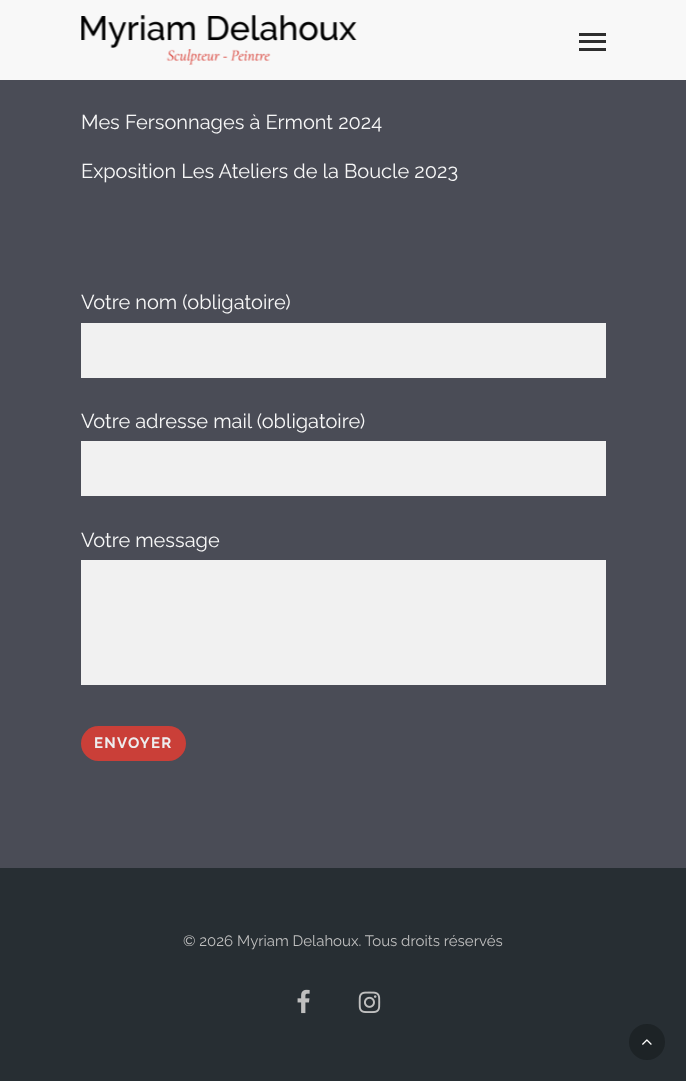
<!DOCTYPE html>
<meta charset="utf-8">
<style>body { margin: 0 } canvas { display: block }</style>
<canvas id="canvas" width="686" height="1081"></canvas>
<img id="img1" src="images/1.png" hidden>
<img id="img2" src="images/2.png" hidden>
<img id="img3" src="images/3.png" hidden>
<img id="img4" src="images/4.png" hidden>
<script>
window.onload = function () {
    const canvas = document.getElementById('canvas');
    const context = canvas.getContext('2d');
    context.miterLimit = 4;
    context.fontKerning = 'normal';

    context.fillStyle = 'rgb(74, 76, 86)';
    context.fillRect(0, 0, 686, 1081);
    context.fillStyle = 'rgba(255, 255, 255, 0.96)';
    context.fillRect(0, 0, 686, 80);
    context.drawImage(document.getElementById('img1'), 81, 15, 276, 50);
    context.fillStyle = 'rgb(45, 45, 45)';
    context.fillRect(579, 33, 27, 3);
    context.fillRect(579, 48, 27, 3);
    context.fillRect(579, 40, 27, 3);
    context.fillStyle = 'rgb(241, 241, 241)';
    context.fillRect(81, 323, 525, 55);
    context.fillRect(81, 441, 525, 55);
    context.fillRect(81, 560, 525, 125);
    context.fillStyle = 'rgb(202, 63, 56)';
    context.beginPath();
    context.roundRect(81, 726, 105, 35, 17.5);
    context.fill();
    context.fillStyle = 'rgb(39, 46, 51)';
    context.fillRect(0, 868, 686, 213);
    context.drawImage(document.getElementById('img2'), 297, 989, 13, 25);
    context.drawImage(document.getElementById('img3'), 358, 991, 23, 22);
    context.fillStyle = 'rgb(29, 35, 38)';
    context.beginPath();
    context.arc(647, 1042, 18, 0, 2 * Math.PI);
    context.fill();
    context.drawImage(document.getElementById('img4'), 642, 1039, 10, 6);
    context.font = '20px Raleway';
    context.fillStyle = 'rgb(247, 247, 247)';
    context.fillText('Mes Fersonnages à Ermont 2024', 81, 129);
    context.fillText('Exposition Les Ateliers de la Boucle 2023', 81, 178);
    context.fillText('Votre nom (obligatoire)', 81, 309);
    context.fillText('Votre adresse mail (obligatoire)', 81, 428);
    context.fillText('Votre message', 81, 547);
    context.letterSpacing = '1.25px';
    context.font = 'bold 15px Raleway';
    context.fillStyle = 'rgb(237, 237, 238)';
    context.fillText('ENVOYER', 94, 748);
    context.letterSpacing = '0px';
    context.font = '15px Raleway';
    context.fillStyle = 'rgb(191, 191, 191)';
    context.fillText('© 2026 Myriam Delahoux. Tous droits réservés', 183, 946);
};
</script>
